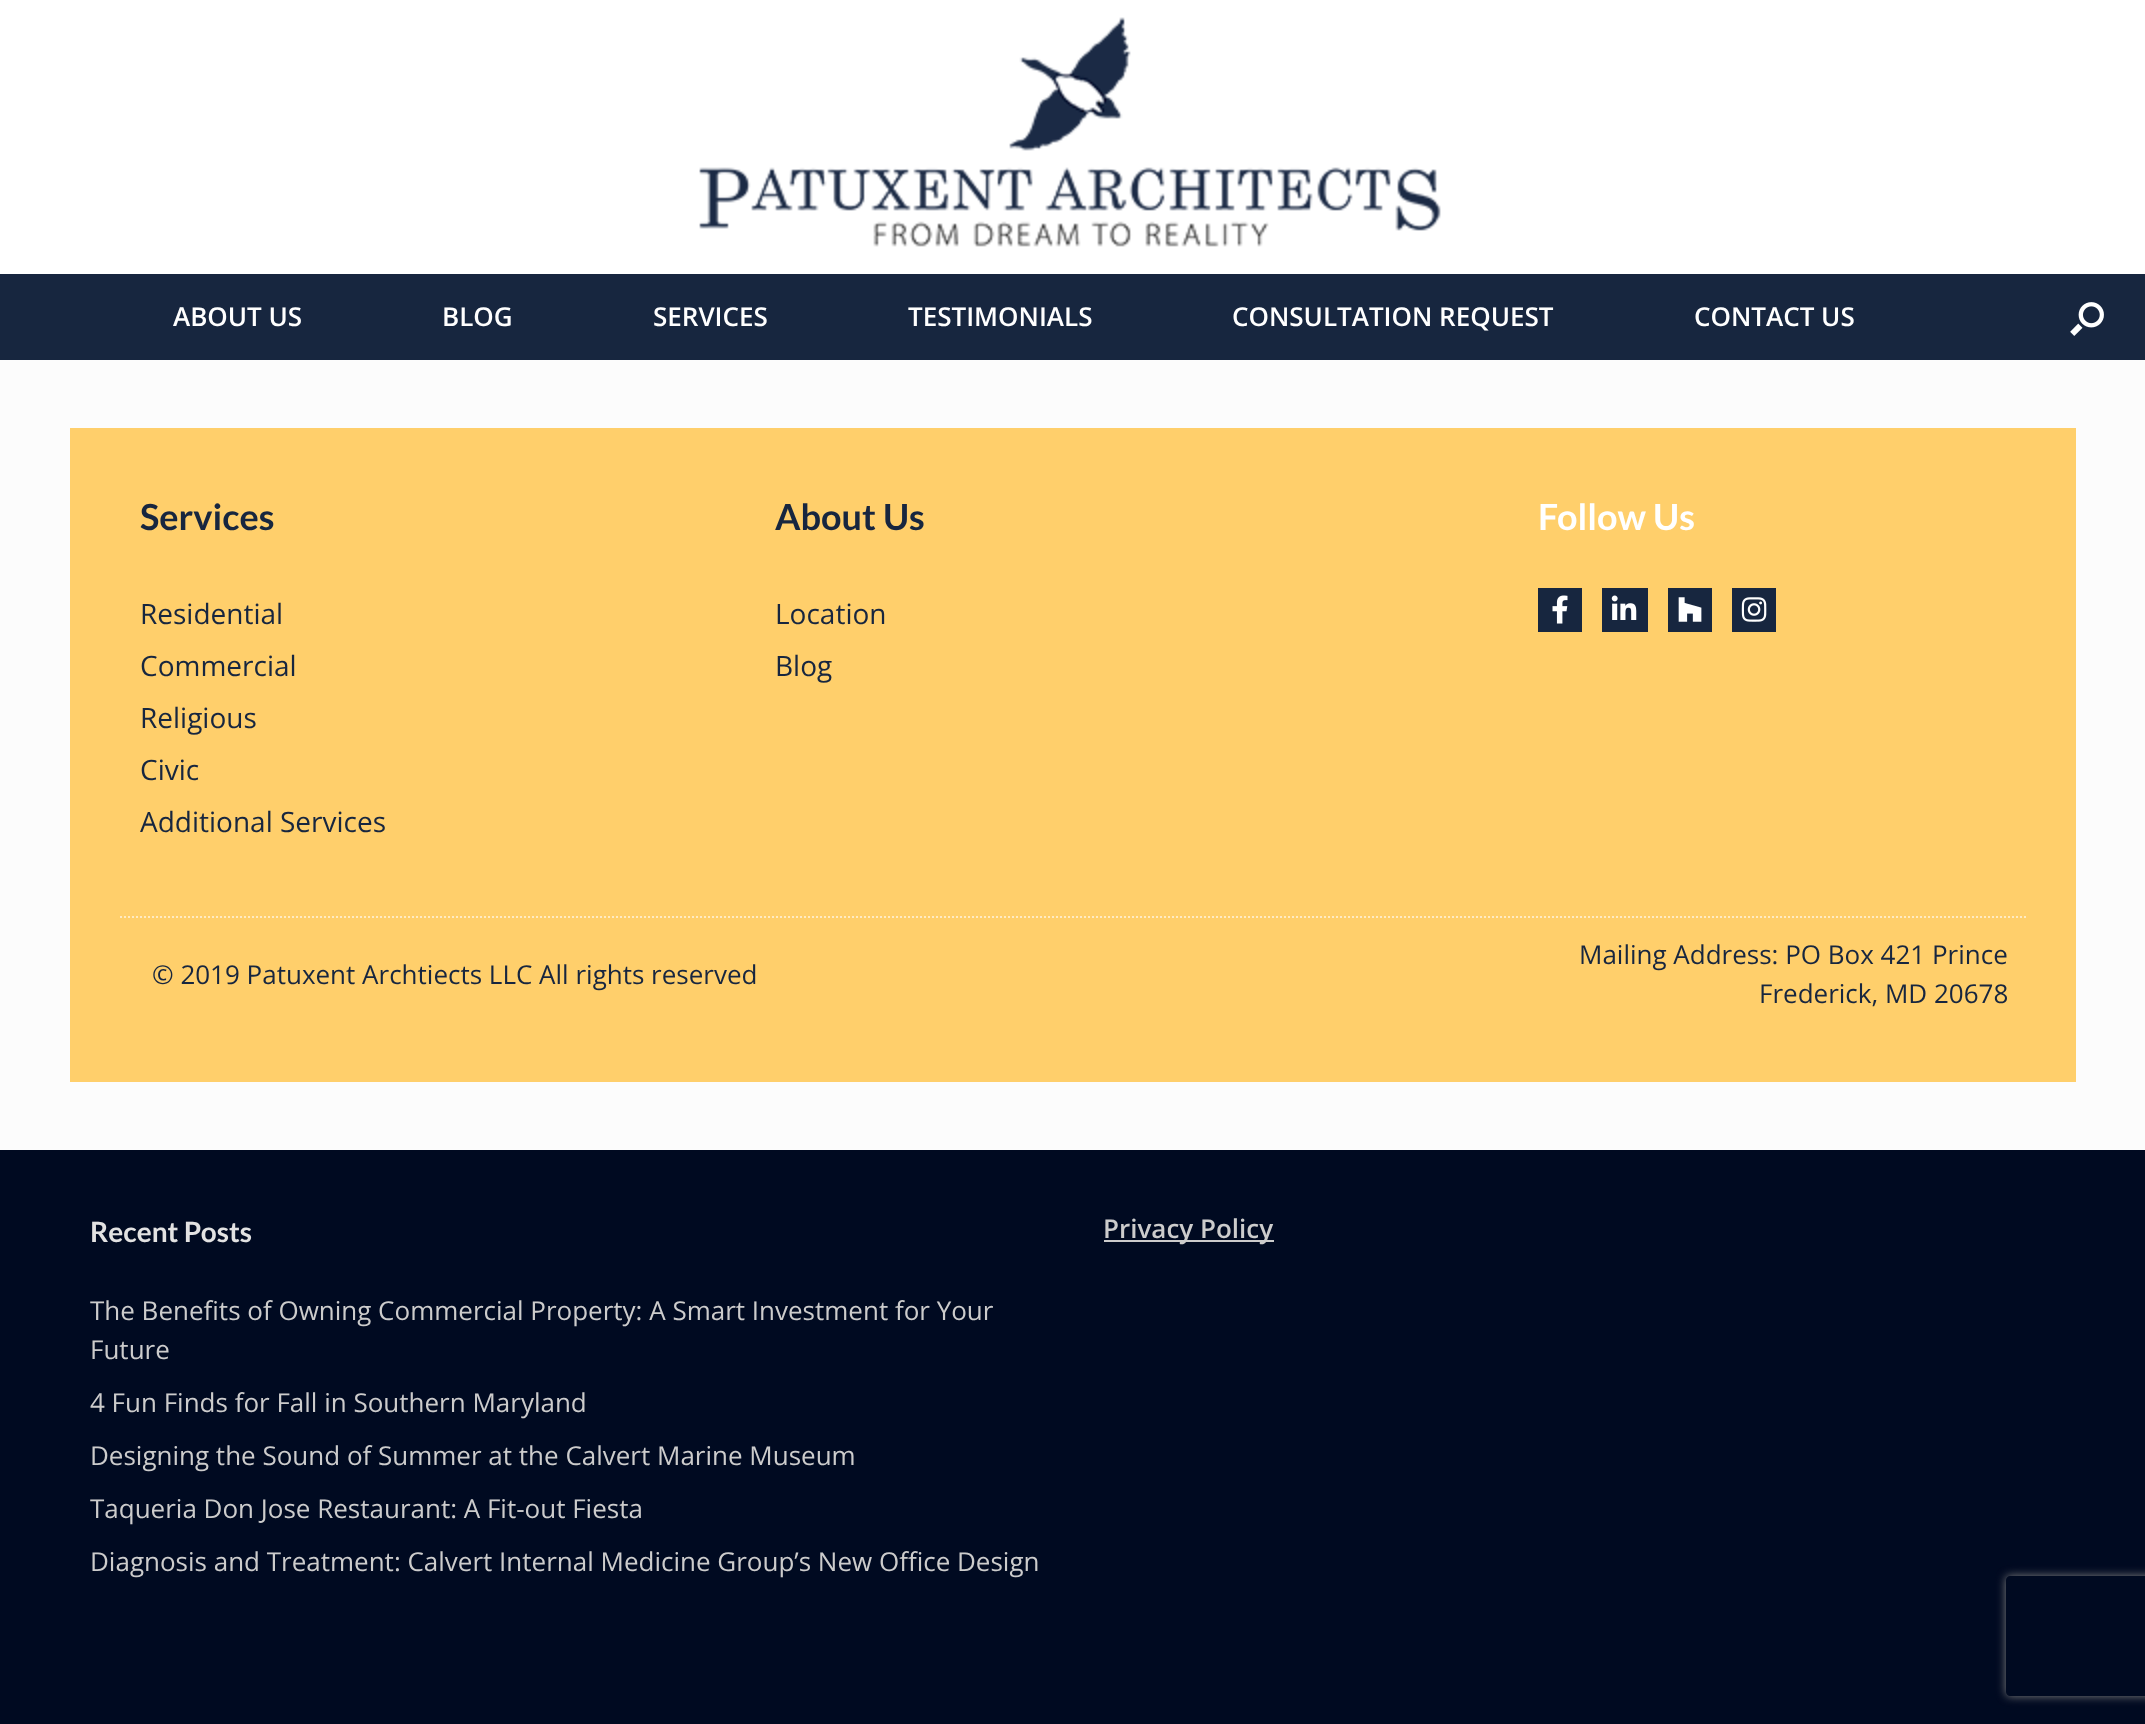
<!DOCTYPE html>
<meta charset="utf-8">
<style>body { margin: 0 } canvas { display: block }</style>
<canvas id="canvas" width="2145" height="1724"></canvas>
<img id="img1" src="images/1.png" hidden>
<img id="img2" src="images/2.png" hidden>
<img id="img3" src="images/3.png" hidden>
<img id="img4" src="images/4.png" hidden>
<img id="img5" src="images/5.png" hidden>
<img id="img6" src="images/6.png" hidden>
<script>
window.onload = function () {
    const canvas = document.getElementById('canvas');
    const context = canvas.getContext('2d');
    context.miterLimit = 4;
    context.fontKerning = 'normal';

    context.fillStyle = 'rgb(0, 10, 33)';
    context.fillRect(0, 0, 2145, 1724);
    context.fillStyle = 'rgb(255, 255, 255)';
    context.fillRect(0, 0, 2145, 274);
    context.drawImage(document.getElementById('img1'), 699, 17, 742, 230);
    context.fillStyle = 'rgb(23, 38, 63)';
    context.fillRect(0, 274, 2145, 86);
    context.drawImage(document.getElementById('img2'), 2070, 302, 34, 34);
    context.fillStyle = 'rgb(252, 252, 252)';
    context.fillRect(0, 360, 2145, 790);
    context.fillStyle = 'rgb(255, 207, 107)';
    context.fillRect(70, 428, 2006, 654);
    context.fillStyle = 'rgb(23, 38, 63)';
    context.fillRect(1538, 588, 44, 44);
    context.drawImage(document.getElementById('img3'), 1552, 595, 16, 29);
    context.fillRect(1602, 588, 46, 44);
    context.drawImage(document.getElementById('img4'), 1611, 595, 26, 25);
    context.fillRect(1668, 588, 44, 44);
    context.drawImage(document.getElementById('img5'), 1678, 597, 24, 25);
    context.fillRect(1732, 588, 44, 44);
    context.drawImage(document.getElementById('img6'), 1741, 597, 26, 25);
    context.beginPath();
    context.moveTo(120, 917);
    context.lineTo(2026, 917);
    context.strokeStyle = 'rgb(255, 235, 194)';
    context.lineWidth = 2;
    context.setLineDash([2, 2]);
    context.stroke();
    context.fillStyle = 'rgb(204, 204, 204)';
    context.fillRect(1104, 1240, 170, 2);
    context.save();
    context.beginPath();
    context.moveTo(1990, 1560);
    context.lineTo(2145, 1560);
    context.lineTo(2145, 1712);
    context.lineTo(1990, 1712);
    context.closePath();
    context.moveTo(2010, 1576);
    context.lineTo(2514, 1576);
    context.bezierCurveTo(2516, 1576, 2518, 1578, 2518, 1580);
    context.lineTo(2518, 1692);
    context.bezierCurveTo(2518, 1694, 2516, 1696, 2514, 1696);
    context.lineTo(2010, 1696);
    context.bezierCurveTo(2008, 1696, 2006, 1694, 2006, 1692);
    context.lineTo(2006, 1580);
    context.bezierCurveTo(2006, 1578, 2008, 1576, 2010, 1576);
    context.closePath();
    context.clip('evenodd');
    context.fillStyle = 'rgb(128, 128, 128)';
    context.filter = 'blur(5px)';
    context.beginPath();
    context.roundRect(2006, 1576, 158, 120, 4);
    context.fill();
    context.filter = 'none';
    context.restore();
    context.font = '600 26px Open Sans';
    context.fillStyle = 'rgb(255, 255, 255)';
    context.fillText('ABOUT US', 173, 326);
    context.fillText('BLOG', 442, 326);
    context.fillText('SERVICES', 653, 326);
    context.fillText('TESTIMONIALS', 908, 326);
    context.fillText('CONSULTATION REQUEST', 1232, 326);
    context.fillText('CONTACT US', 1694, 326);
    context.font = 'bold 36px Lato';
    context.fillStyle = 'rgb(23, 38, 63)';
    context.fillText('Services', 140, 530);
    context.font = '28px Open Sans';
    context.fillText('Residential', 140, 624);
    context.fillText('Commercial', 140, 676);
    context.fillText('Religious', 140, 728);
    context.fillText('Civic', 140, 780);
    context.fillText('Additional Services', 140, 832);
    context.font = 'bold 36px Lato';
    context.fillText('About Us', 775, 530);
    context.font = '28px Open Sans';
    context.fillText('Location', 775, 624);
    context.fillText('Blog', 775, 676);
    context.font = 'bold 36px Lato';
    context.fillStyle = 'rgb(255, 255, 255)';
    context.fillText('Follow Us', 1538, 530);
    context.font = '26px Open Sans';
    context.fillStyle = 'rgb(23, 38, 63)';
    context.fillText('© 2019 Patuxent Archtiects LLC All rights reserved', 152, 984);
    context.fillText('Mailing Address: PO Box 421 Prince', 1579, 964);
    context.fillText('Frederick, MD 20678', 1759, 1003);
    context.font = 'bold 28px Lato';
    context.fillStyle = 'rgb(226, 226, 226)';
    context.fillText('Recent Posts', 90, 1242);
    context.font = '26px Open Sans';
    context.fillStyle = 'rgb(204, 204, 204)';
    context.fillText('The Benefits of Owning Commercial Property: A Smart Investment for Your', 90, 1320);
    context.fillText('Future', 90, 1359);
    context.fillText('4 Fun Finds for Fall in Southern Maryland', 90, 1412);
    context.fillText('Designing the Sound of Summer at the Calvert Marine Museum', 90, 1465);
    context.fillText('Taqueria Don Jose Restaurant: A Fit-out Fiesta', 90, 1518);
    context.fillText('Diagnosis and Treatment: Calvert Internal Medicine Group’s New Office Design', 90, 1571);
    context.font = '600 26px Open Sans';
    context.fillText('Privacy Policy', 1103, 1238);
};
</script>
